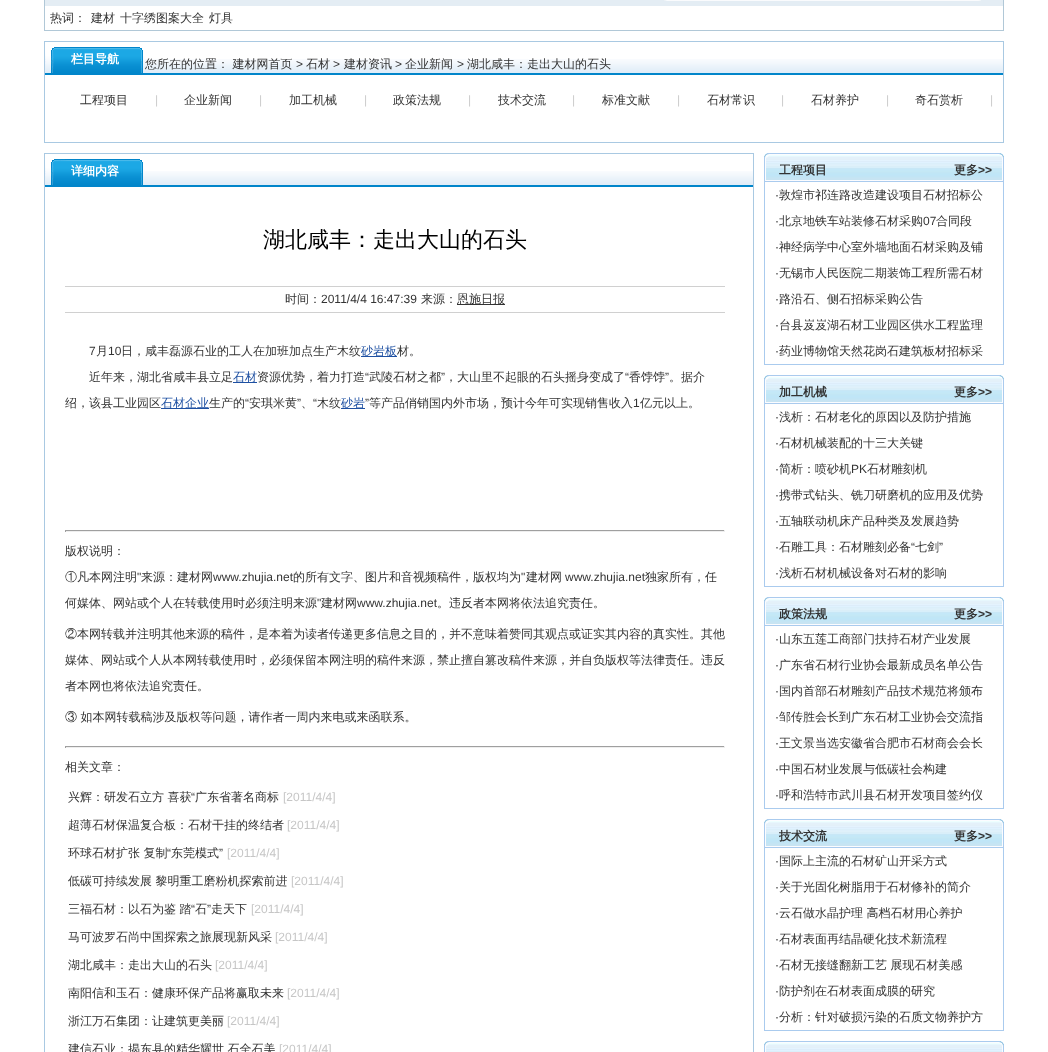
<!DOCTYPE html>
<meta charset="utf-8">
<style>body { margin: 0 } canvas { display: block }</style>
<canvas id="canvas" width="1048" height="1052"></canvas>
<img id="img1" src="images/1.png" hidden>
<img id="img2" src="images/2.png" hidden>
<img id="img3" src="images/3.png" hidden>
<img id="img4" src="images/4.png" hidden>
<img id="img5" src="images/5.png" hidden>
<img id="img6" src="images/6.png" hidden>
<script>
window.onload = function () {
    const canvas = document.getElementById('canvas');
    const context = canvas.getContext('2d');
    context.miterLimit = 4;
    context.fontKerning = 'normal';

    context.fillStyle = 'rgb(255, 255, 255)';
    context.fillRect(0, 0, 1048, 1052);
    context.fillStyle = 'rgb(228, 237, 244)';
    context.fillRect(44, 0, 960, 6);
    context.strokeStyle = 'rgb(177, 200, 215)';
    context.strokeRect(44.5, -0.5, 959, 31);
    context.drawImage(document.getElementById('img1'), 664, 0, 317, 1);
    context.strokeStyle = 'rgb(169, 201, 226)';
    context.strokeRect(44.5, 41.5, 959, 101);
    context.drawImage(document.getElementById('img2'), 45, 47, 100, 28);
    context.drawImage(document.getElementById('img3'), 145, 59, 858, 16);
    context.strokeRect(44.5, 153.5, 709, 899);
    context.drawImage(document.getElementById('img2'), 45, 159, 100, 28);
    context.drawImage(document.getElementById('img4'), 145, 171, 608, 16);
    context.fillStyle = 'rgb(208, 208, 208)';
    context.fillRect(65, 286, 660, 1);
    context.fillRect(65, 312, 660, 1);
    context.fillStyle = 'rgb(51, 51, 51)';
    context.fillRect(457, 304, 48, 1);
    context.fillStyle = 'rgb(30, 80, 162)';
    context.fillRect(361, 356, 36, 1);
    context.fillRect(233, 382, 24, 1);
    context.fillRect(161, 408, 48, 1);
    context.fillRect(341, 408, 24, 1);
    context.fillStyle = 'rgb(159, 159, 159)';
    context.fillRect(65, 530, 660, 1);
    context.fillStyle = 'rgb(238, 238, 238)';
    context.fillRect(724, 530, 1, 2);
    context.fillRect(65, 531, 660, 1);
    context.fillStyle = 'rgb(159, 159, 159)';
    context.fillRect(65, 530, 1, 2);
    context.fillRect(65, 746, 660, 1);
    context.fillStyle = 'rgb(238, 238, 238)';
    context.fillRect(724, 746, 1, 2);
    context.fillRect(65, 747, 660, 1);
    context.fillStyle = 'rgb(159, 159, 159)';
    context.fillRect(65, 746, 1, 2);
    context.drawImage(document.getElementById('img5'), 764, 153, 240, 29);
    context.fillStyle = 'rgb(170, 203, 238)';
    context.fillRect(1003, 182, 1, 183);
    context.fillRect(764, 364, 240, 1);
    context.fillRect(764, 182, 1, 183);
    context.drawImage(document.getElementById('img5'), 764, 375, 240, 29);
    context.fillRect(1003, 404, 1, 183);
    context.fillRect(764, 586, 240, 1);
    context.fillRect(764, 404, 1, 183);
    context.drawImage(document.getElementById('img5'), 764, 597, 240, 29);
    context.fillRect(1003, 626, 1, 183);
    context.fillRect(764, 808, 240, 1);
    context.fillRect(764, 626, 1, 183);
    context.drawImage(document.getElementById('img5'), 764, 819, 240, 29);
    context.fillRect(1003, 848, 1, 183);
    context.fillRect(764, 1030, 240, 1);
    context.fillRect(764, 848, 1, 183);
    context.drawImage(document.getElementById('img6'), 764, 1041, 240, 11);
    context.font = '500 12px WenQuanYi Zen Hei';
    context.fillStyle = 'rgb(51, 51, 51)';
    context.fillText('热词：', 50, 22);
    context.fillText('建材', 91, 22);
    context.fillText('十字绣图案大全', 120, 22);
    context.fillText('灯具', 209, 22);
    context.font = 'bold 12px WenQuanYi Zen Hei';
    context.fillStyle = 'rgb(255, 255, 255)';
    context.fillText('栏目导航', 71, 63);
    context.font = '500 12px WenQuanYi Zen Hei';
    context.fillStyle = 'rgb(51, 51, 51)';
    context.fillText('您所在的位置： 建材网首页', 145, 68);
    context.font = '12px Liberation Sans';
    context.fillText('>', 296, 68);
    context.font = '500 12px WenQuanYi Zen Hei';
    context.fillText('石材', 306, 68);
    context.font = '12px Liberation Sans';
    context.fillText('>', 333, 68);
    context.font = '500 12px WenQuanYi Zen Hei';
    context.fillText('建材资讯', 344, 68);
    context.font = '12px Liberation Sans';
    context.fillText('>', 395, 68);
    context.font = '500 12px WenQuanYi Zen Hei';
    context.fillText('企业新闻', 405, 68);
    context.font = '12px Liberation Sans';
    context.fillText('>', 457, 68);
    context.font = '500 12px WenQuanYi Zen Hei';
    context.fillText('湖北咸丰：走出大山的石头', 467, 68);
    context.fillText('工程项目', 80, 104);
    context.font = '12px Liberation Sans';
    context.fillStyle = 'rgb(204, 204, 204)';
    context.fillText('|', 155, 104);
    context.font = '500 12px WenQuanYi Zen Hei';
    context.fillStyle = 'rgb(51, 51, 51)';
    context.fillText('企业新闻', 184, 104);
    context.font = '12px Liberation Sans';
    context.fillStyle = 'rgb(204, 204, 204)';
    context.fillText('|', 259, 104);
    context.font = '500 12px WenQuanYi Zen Hei';
    context.fillStyle = 'rgb(51, 51, 51)';
    context.fillText('加工机械', 289, 104);
    context.font = '12px Liberation Sans';
    context.fillStyle = 'rgb(204, 204, 204)';
    context.fillText('|', 364, 104);
    context.font = '500 12px WenQuanYi Zen Hei';
    context.fillStyle = 'rgb(51, 51, 51)';
    context.fillText('政策法规', 393, 104);
    context.font = '12px Liberation Sans';
    context.fillStyle = 'rgb(204, 204, 204)';
    context.fillText('|', 468, 104);
    context.font = '500 12px WenQuanYi Zen Hei';
    context.fillStyle = 'rgb(51, 51, 51)';
    context.fillText('技术交流', 498, 104);
    context.font = '12px Liberation Sans';
    context.fillStyle = 'rgb(204, 204, 204)';
    context.fillText('|', 572, 104);
    context.font = '500 12px WenQuanYi Zen Hei';
    context.fillStyle = 'rgb(51, 51, 51)';
    context.fillText('标准文献', 602, 104);
    context.font = '12px Liberation Sans';
    context.fillStyle = 'rgb(204, 204, 204)';
    context.fillText('|', 677, 104);
    context.font = '500 12px WenQuanYi Zen Hei';
    context.fillStyle = 'rgb(51, 51, 51)';
    context.fillText('石材常识', 707, 104);
    context.font = '12px Liberation Sans';
    context.fillStyle = 'rgb(204, 204, 204)';
    context.fillText('|', 781, 104);
    context.font = '500 12px WenQuanYi Zen Hei';
    context.fillStyle = 'rgb(51, 51, 51)';
    context.fillText('石材养护', 811, 104);
    context.font = '12px Liberation Sans';
    context.fillStyle = 'rgb(204, 204, 204)';
    context.fillText('|', 886, 104);
    context.font = '500 12px WenQuanYi Zen Hei';
    context.fillStyle = 'rgb(51, 51, 51)';
    context.fillText('奇石赏析', 915, 104);
    context.font = '12px Liberation Sans';
    context.fillStyle = 'rgb(204, 204, 204)';
    context.fillText('|', 990, 104);
    context.font = 'bold 12px WenQuanYi Zen Hei';
    context.fillStyle = 'rgb(255, 255, 255)';
    context.fillText('详细内容', 71, 175);
    context.font = '500 22px WenQuanYi Zen Hei';
    context.fillStyle = 'rgb(0, 0, 0)';
    context.fillText('湖北咸丰：走出大山的石头', 263, 247);
    context.font = '500 12px WenQuanYi Zen Hei';
    context.fillStyle = 'rgb(51, 51, 51)';
    context.fillText('时间：', 285, 303);
    context.font = '12px Liberation Sans';
    context.fillText('2011/4/4 16:47:39', 321, 303);
    context.font = '500 12px WenQuanYi Zen Hei';
    context.fillText('来源：', 421, 303);
    context.fillText('恩施日报', 457, 303);
    context.font = '12px Liberation Sans';
    context.fillText('7', 89, 355);
    context.font = '500 12px WenQuanYi Zen Hei';
    context.fillText('月', 96, 355);
    context.font = '12px Liberation Sans';
    context.fillText('10', 108, 355);
    context.font = '500 12px WenQuanYi Zen Hei';
    context.fillText('日，咸丰磊源石业的工人在加班加点生产木纹', 121, 355);
    context.fillStyle = 'rgb(30, 80, 162)';
    context.fillText('砂岩板', 361, 355);
    context.fillStyle = 'rgb(51, 51, 51)';
    context.fillText('材。', 397, 355);
    context.fillText('近年来，湖北省咸丰县立足', 89, 381);
    context.fillStyle = 'rgb(30, 80, 162)';
    context.fillText('石材', 233, 381);
    context.fillStyle = 'rgb(51, 51, 51)';
    context.fillText('资源优势，着力打造', 257, 381);
    context.font = '12px Liberation Sans';
    context.fillText('“', 365, 381);
    context.font = '500 12px WenQuanYi Zen Hei';
    context.fillText('武陵石材之都', 369, 381);
    context.font = '12px Liberation Sans';
    context.fillText('”', 441, 381);
    context.font = '500 12px WenQuanYi Zen Hei';
    context.fillText('，大山里不起眼的石头摇身变成了', 445, 381);
    context.font = '12px Liberation Sans';
    context.fillText('“', 625, 381);
    context.font = '500 12px WenQuanYi Zen Hei';
    context.fillText('香饽饽', 629, 381);
    context.font = '12px Liberation Sans';
    context.fillText('”', 665, 381);
    context.font = '500 12px WenQuanYi Zen Hei';
    context.fillText('。据介', 669, 381);
    context.fillText('绍，该县工业园区', 65, 407);
    context.fillStyle = 'rgb(30, 80, 162)';
    context.fillText('石材企业', 161, 407);
    context.fillStyle = 'rgb(51, 51, 51)';
    context.fillText('生产的', 209, 407);
    context.font = '12px Liberation Sans';
    context.fillText('“', 245, 407);
    context.font = '500 12px WenQuanYi Zen Hei';
    context.fillText('安琪米黄', 249, 407);
    context.font = '12px Liberation Sans';
    context.fillText('”', 297, 407);
    context.fillText('“', 313, 407);
    context.font = '500 12px WenQuanYi Zen Hei';
    context.fillText('木纹', 317, 407);
    context.fillStyle = 'rgb(30, 80, 162)';
    context.fillText('砂岩', 341, 407);
    context.font = '12px Liberation Sans';
    context.fillStyle = 'rgb(51, 51, 51)';
    context.fillText('”', 365, 407);
    context.font = '500 12px WenQuanYi Zen Hei';
    context.fillText('等产品俏销国内外市场，预计今年可实现销售收入', 369, 407);
    context.font = '12px Liberation Sans';
    context.fillText('1', 633, 407);
    context.font = '500 12px WenQuanYi Zen Hei';
    context.fillText('亿元以上。', 640, 407);
    context.fillText('、', 301, 407);
    context.fillText('版权说明：', 65, 555);
    context.fillText('①凡本网注明', 65, 581);
    context.font = '12px Liberation Sans';
    context.fillText('"', 137, 581);
    context.font = '500 12px WenQuanYi Zen Hei';
    context.fillText('来源：建材网', 141, 581);
    context.font = '12px Liberation Sans';
    context.fillText('www.zhujia.net', 213, 581);
    context.font = '500 12px WenQuanYi Zen Hei';
    context.fillText('的所有文字、图片和音视频稿件，版权均为', 293, 581);
    context.font = '12px Liberation Sans';
    context.fillText('"', 521, 581);
    context.font = '500 12px WenQuanYi Zen Hei';
    context.fillText('建材网', 526, 581);
    context.font = '12px Liberation Sans';
    context.fillText('www.zhujia.net', 565, 581);
    context.font = '500 12px WenQuanYi Zen Hei';
    context.fillText('独家所有，任', 645, 581);
    context.fillText('何媒体、网站或个人在转载使用时必须注明来源', 65, 607);
    context.font = '12px Liberation Sans';
    context.fillText('"', 317, 607);
    context.font = '500 12px WenQuanYi Zen Hei';
    context.fillText('建材网', 321, 607);
    context.font = '12px Liberation Sans';
    context.fillText('www.zhujia.net', 357, 607);
    context.font = '500 12px WenQuanYi Zen Hei';
    context.fillText('。违反者本网将依法追究责任。', 437, 607);
    context.fillText('②本网转载并注明其他来源的稿件，是本着为读者传递更多信息之目的，并不意味着赞同其观点或证实其内容的真实性。其他', 65, 638);
    context.fillText('媒体、网站或个人从本网转载使用时，必须保留本网注明的稿件来源，禁止擅自篡改稿件来源，并自负版权等法律责任。违反', 65, 664);
    context.fillText('者本网也将依法追究责任。', 65, 690);
    context.fillText('③ 如本网转载稿涉及版权等问题，请作者一周内来电或来函联系。', 65, 721);
    context.fillText('相关文章：', 65, 771);
    context.fillText('兴辉：研发石立方 喜获', 68, 801);
    context.font = '12px Liberation Sans';
    context.fillText('“', 191, 801);
    context.font = '500 12px WenQuanYi Zen Hei';
    context.fillText('广东省著名商标', 195, 801);
    context.font = '12px Liberation Sans';
    context.fillStyle = 'rgb(198, 198, 198)';
    context.fillText('[2011/4/4]', 283, 801);
    context.font = '500 12px WenQuanYi Zen Hei';
    context.fillStyle = 'rgb(51, 51, 51)';
    context.fillText('超薄石材保温复合板：石材干挂的终结者', 68, 829);
    context.font = '12px Liberation Sans';
    context.fillStyle = 'rgb(198, 198, 198)';
    context.fillText('[2011/4/4]', 287, 829);
    context.font = '500 12px WenQuanYi Zen Hei';
    context.fillStyle = 'rgb(51, 51, 51)';
    context.fillText('环球石材扩张 复制', 68, 857);
    context.font = '12px Liberation Sans';
    context.fillText('“', 167, 857);
    context.font = '500 12px WenQuanYi Zen Hei';
    context.fillText('东莞模式', 171, 857);
    context.font = '12px Liberation Sans';
    context.fillText('”', 219, 857);
    context.fillStyle = 'rgb(198, 198, 198)';
    context.fillText('[2011/4/4]', 227, 857);
    context.font = '500 12px WenQuanYi Zen Hei';
    context.fillStyle = 'rgb(51, 51, 51)';
    context.fillText('低碳可持续发展 黎明重工磨粉机探索前进', 68, 885);
    context.font = '12px Liberation Sans';
    context.fillStyle = 'rgb(198, 198, 198)';
    context.fillText('[2011/4/4]', 291, 885);
    context.font = '500 12px WenQuanYi Zen Hei';
    context.fillStyle = 'rgb(51, 51, 51)';
    context.fillText('三福石材：以石为鉴 踏', 68, 913);
    context.font = '12px Liberation Sans';
    context.fillText('“', 191, 913);
    context.font = '500 12px WenQuanYi Zen Hei';
    context.fillText('石', 195, 913);
    context.font = '12px Liberation Sans';
    context.fillText('”', 207, 913);
    context.font = '500 12px WenQuanYi Zen Hei';
    context.fillText('走天下', 211, 913);
    context.font = '12px Liberation Sans';
    context.fillStyle = 'rgb(198, 198, 198)';
    context.fillText('[2011/4/4]', 251, 913);
    context.font = '500 12px WenQuanYi Zen Hei';
    context.fillStyle = 'rgb(51, 51, 51)';
    context.fillText('马可波罗石尚中国探索之旅展现新风采', 68, 941);
    context.font = '12px Liberation Sans';
    context.fillStyle = 'rgb(198, 198, 198)';
    context.fillText('[2011/4/4]', 275, 941);
    context.font = '500 12px WenQuanYi Zen Hei';
    context.fillStyle = 'rgb(51, 51, 51)';
    context.fillText('湖北咸丰：走出大山的石头', 68, 969);
    context.font = '12px Liberation Sans';
    context.fillStyle = 'rgb(198, 198, 198)';
    context.fillText('[2011/4/4]', 215, 969);
    context.font = '500 12px WenQuanYi Zen Hei';
    context.fillStyle = 'rgb(51, 51, 51)';
    context.fillText('南阳信和玉石：健康环保产品将赢取未来', 68, 997);
    context.font = '12px Liberation Sans';
    context.fillStyle = 'rgb(198, 198, 198)';
    context.fillText('[2011/4/4]', 287, 997);
    context.font = '500 12px WenQuanYi Zen Hei';
    context.fillStyle = 'rgb(51, 51, 51)';
    context.fillText('浙江万石集团：让建筑更美丽', 68, 1025);
    context.font = '12px Liberation Sans';
    context.fillStyle = 'rgb(198, 198, 198)';
    context.fillText('[2011/4/4]', 227, 1025);
    context.font = '500 12px WenQuanYi Zen Hei';
    context.fillStyle = 'rgb(51, 51, 51)';
    context.fillText('建信石业：揭东县的精华耀世 石全石美', 68, 1053);
    context.font = '12px Liberation Sans';
    context.fillStyle = 'rgb(198, 198, 198)';
    context.fillText('[2011/4/4]', 279, 1053);
    context.font = 'bold 12px WenQuanYi Zen Hei';
    context.fillStyle = 'rgb(51, 51, 51)';
    context.fillText('工程项目', 779, 174);
    context.fillText('更多', 954, 174);
    context.font = 'bold 12px Liberation Sans';
    context.fillText('>>', 978, 174);
    context.font = '12px Liberation Sans';
    context.fillText('·', 775, 199);
    context.font = '500 12px WenQuanYi Zen Hei';
    context.fillText('敦煌市祁连路改造建设项目石材招标公', 779, 199);
    context.font = '12px Liberation Sans';
    context.fillText('·', 775, 225);
    context.font = '500 12px WenQuanYi Zen Hei';
    context.fillText('北京地铁车站装修石材采购', 779, 225);
    context.font = '12px Liberation Sans';
    context.fillText('07', 923, 225);
    context.font = '500 12px WenQuanYi Zen Hei';
    context.fillText('合同段', 936, 225);
    context.font = '12px Liberation Sans';
    context.fillText('·', 775, 251);
    context.font = '500 12px WenQuanYi Zen Hei';
    context.fillText('神经病学中心室外墙地面石材采购及铺', 779, 251);
    context.font = '12px Liberation Sans';
    context.fillText('·', 775, 277);
    context.font = '500 12px WenQuanYi Zen Hei';
    context.fillText('无锡市人民医院二期装饰工程所需石材', 779, 277);
    context.font = '12px Liberation Sans';
    context.fillText('·', 775, 303);
    context.font = '500 12px WenQuanYi Zen Hei';
    context.fillText('路沿石、侧石招标采购公告', 779, 303);
    context.font = '12px Liberation Sans';
    context.fillText('·', 775, 329);
    context.font = '500 12px WenQuanYi Zen Hei';
    context.fillText('台县岌岌湖石材工业园区供水工程监理', 779, 329);
    context.font = '12px Liberation Sans';
    context.fillText('·', 775, 355);
    context.font = '500 12px WenQuanYi Zen Hei';
    context.fillText('药业博物馆天然花岗石建筑板材招标采', 779, 355);
    context.font = 'bold 12px WenQuanYi Zen Hei';
    context.fillText('加工机械', 779, 396);
    context.fillText('更多', 954, 396);
    context.font = 'bold 12px Liberation Sans';
    context.fillText('>>', 978, 396);
    context.font = '12px Liberation Sans';
    context.fillText('·', 775, 421);
    context.font = '500 12px WenQuanYi Zen Hei';
    context.fillText('浅析：石材老化的原因以及防护措施', 779, 421);
    context.font = '12px Liberation Sans';
    context.fillText('·', 775, 447);
    context.font = '500 12px WenQuanYi Zen Hei';
    context.fillText('石材机械装配的十三大关键', 779, 447);
    context.font = '12px Liberation Sans';
    context.fillText('·', 775, 473);
    context.font = '500 12px WenQuanYi Zen Hei';
    context.fillText('简析：喷砂机', 779, 473);
    context.font = '12px Liberation Sans';
    context.fillText('PK', 851, 473);
    context.font = '500 12px WenQuanYi Zen Hei';
    context.fillText('石材雕刻机', 867, 473);
    context.font = '12px Liberation Sans';
    context.fillText('·', 775, 499);
    context.font = '500 12px WenQuanYi Zen Hei';
    context.fillText('携带式钻头、铣刀研磨机的应用及优势', 779, 499);
    context.font = '12px Liberation Sans';
    context.fillText('·', 775, 525);
    context.font = '500 12px WenQuanYi Zen Hei';
    context.fillText('五轴联动机床产品种类及发展趋势', 779, 525);
    context.fillText('石雕工具：石材雕刻必备', 779, 551);
    context.font = '12px Liberation Sans';
    context.fillText('“', 911, 551);
    context.font = '500 12px WenQuanYi Zen Hei';
    context.fillText('七剑', 915, 551);
    context.font = '12px Liberation Sans';
    context.fillText('”', 939, 551);
    context.fillText('·', 775, 551);
    context.fillText('·', 775, 577);
    context.font = '500 12px WenQuanYi Zen Hei';
    context.fillText('浅析石材机械设备对石材的影响', 779, 577);
    context.font = 'bold 12px WenQuanYi Zen Hei';
    context.fillText('政策法规', 779, 618);
    context.fillText('更多', 954, 618);
    context.font = 'bold 12px Liberation Sans';
    context.fillText('>>', 978, 618);
    context.font = '12px Liberation Sans';
    context.fillText('·', 775, 643);
    context.font = '500 12px WenQuanYi Zen Hei';
    context.fillText('山东五莲工商部门扶持石材产业发展', 779, 643);
    context.font = '12px Liberation Sans';
    context.fillText('·', 775, 669);
    context.font = '500 12px WenQuanYi Zen Hei';
    context.fillText('广东省石材行业协会最新成员名单公告', 779, 669);
    context.font = '12px Liberation Sans';
    context.fillText('·', 775, 695);
    context.font = '500 12px WenQuanYi Zen Hei';
    context.fillText('国内首部石材雕刻产品技术规范将颁布', 779, 695);
    context.font = '12px Liberation Sans';
    context.fillText('·', 775, 721);
    context.font = '500 12px WenQuanYi Zen Hei';
    context.fillText('邹传胜会长到广东石材工业协会交流指', 779, 721);
    context.font = '12px Liberation Sans';
    context.fillText('·', 775, 747);
    context.font = '500 12px WenQuanYi Zen Hei';
    context.fillText('王文景当选安徽省合肥市石材商会会长', 779, 747);
    context.font = '12px Liberation Sans';
    context.fillText('·', 775, 773);
    context.font = '500 12px WenQuanYi Zen Hei';
    context.fillText('中国石材业发展与低碳社会构建', 779, 773);
    context.font = '12px Liberation Sans';
    context.fillText('·', 775, 799);
    context.font = '500 12px WenQuanYi Zen Hei';
    context.fillText('呼和浩特市武川县石材开发项目签约仪', 779, 799);
    context.font = 'bold 12px WenQuanYi Zen Hei';
    context.fillText('技术交流', 779, 840);
    context.fillText('更多', 954, 840);
    context.font = 'bold 12px Liberation Sans';
    context.fillText('>>', 978, 840);
    context.font = '12px Liberation Sans';
    context.fillText('·', 775, 865);
    context.font = '500 12px WenQuanYi Zen Hei';
    context.fillText('国际上主流的石材矿山开采方式', 779, 865);
    context.font = '12px Liberation Sans';
    context.fillText('·', 775, 891);
    context.font = '500 12px WenQuanYi Zen Hei';
    context.fillText('关于光固化树脂用于石材修补的简介', 779, 891);
    context.font = '12px Liberation Sans';
    context.fillText('·', 775, 917);
    context.font = '500 12px WenQuanYi Zen Hei';
    context.fillText('云石做水晶护理 高档石材用心养护', 779, 917);
    context.font = '12px Liberation Sans';
    context.fillText('·', 775, 943);
    context.font = '500 12px WenQuanYi Zen Hei';
    context.fillText('石材表面再结晶硬化技术新流程', 779, 943);
    context.font = '12px Liberation Sans';
    context.fillText('·', 775, 969);
    context.font = '500 12px WenQuanYi Zen Hei';
    context.fillText('石材无接缝翻新工艺 展现石材美感', 779, 969);
    context.font = '12px Liberation Sans';
    context.fillText('·', 775, 995);
    context.font = '500 12px WenQuanYi Zen Hei';
    context.fillText('防护剂在石材表面成膜的研究', 779, 995);
    context.font = '12px Liberation Sans';
    context.fillText('·', 775, 1021);
    context.font = '500 12px WenQuanYi Zen Hei';
    context.fillText('分析：针对破损污染的石质文物养护方', 779, 1021);
};
</script>
